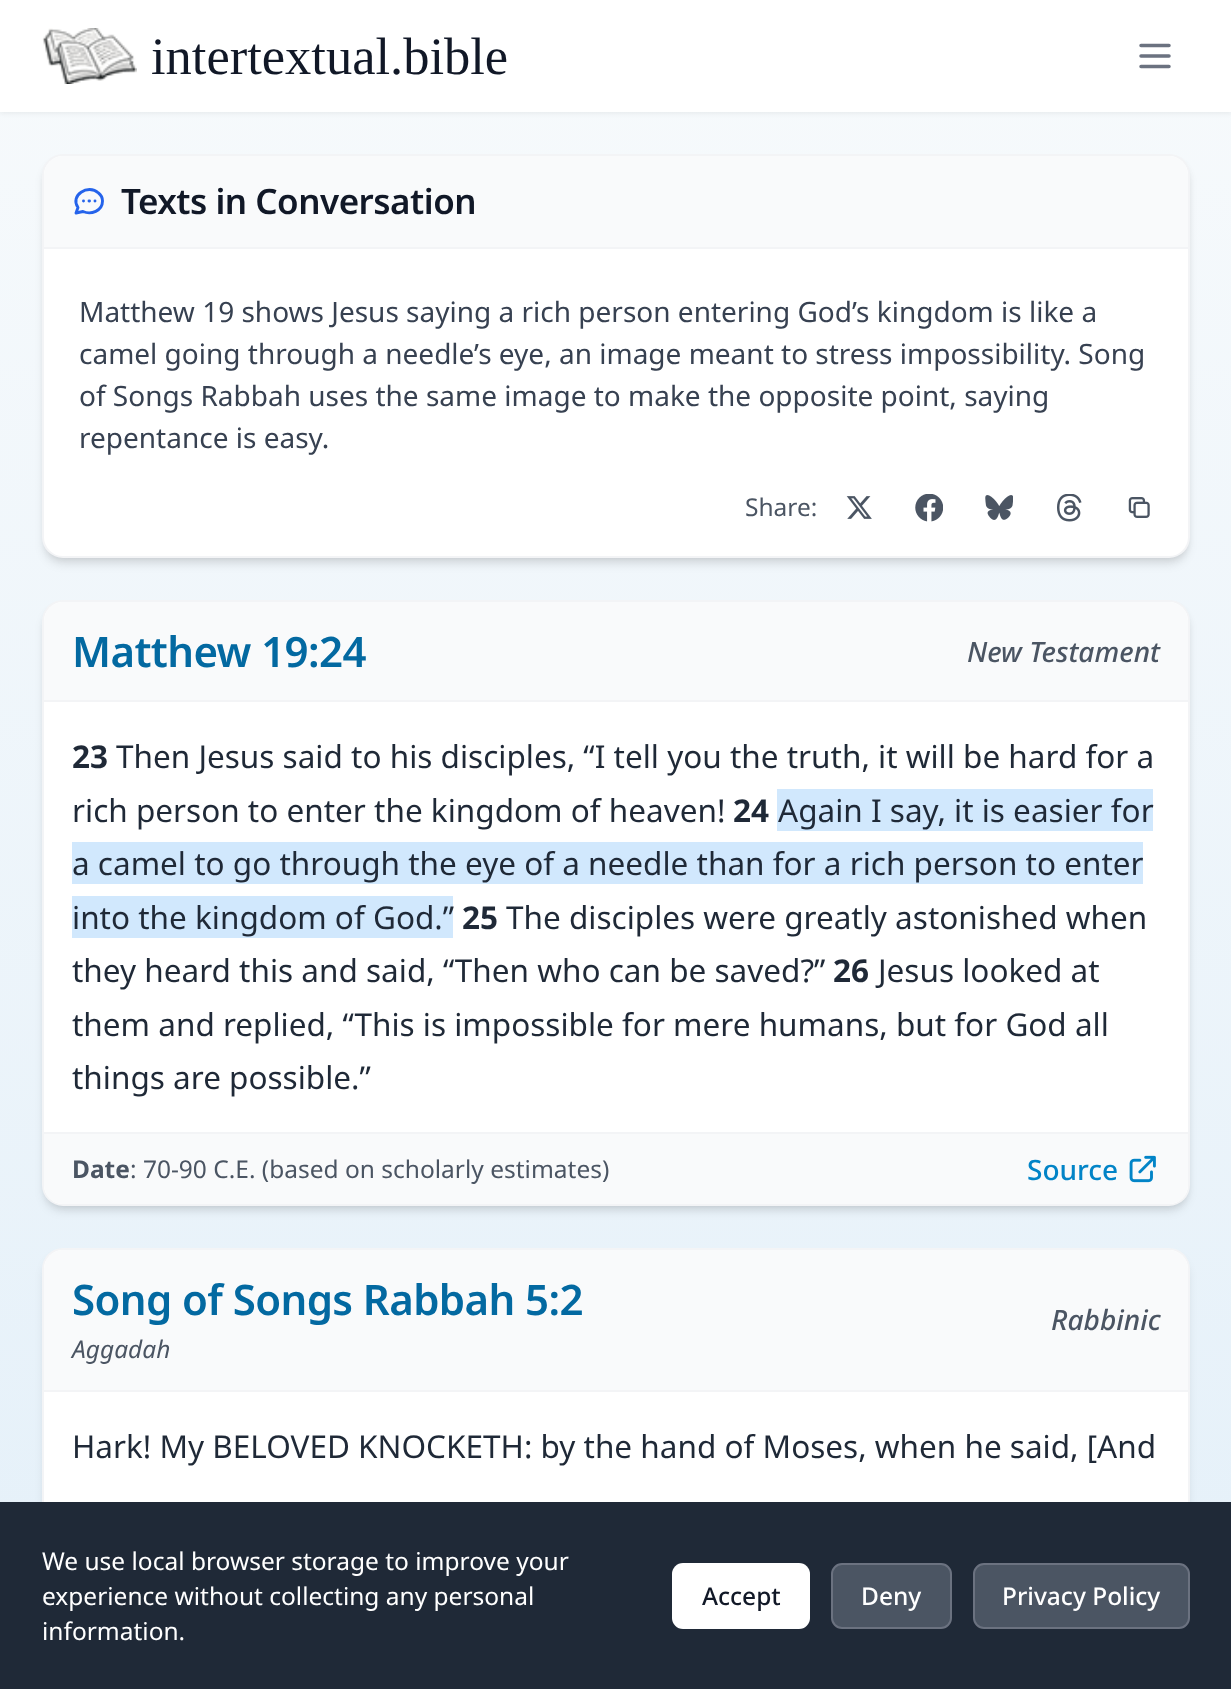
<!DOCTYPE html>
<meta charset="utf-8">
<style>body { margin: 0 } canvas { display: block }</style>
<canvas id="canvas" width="1231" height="1689"></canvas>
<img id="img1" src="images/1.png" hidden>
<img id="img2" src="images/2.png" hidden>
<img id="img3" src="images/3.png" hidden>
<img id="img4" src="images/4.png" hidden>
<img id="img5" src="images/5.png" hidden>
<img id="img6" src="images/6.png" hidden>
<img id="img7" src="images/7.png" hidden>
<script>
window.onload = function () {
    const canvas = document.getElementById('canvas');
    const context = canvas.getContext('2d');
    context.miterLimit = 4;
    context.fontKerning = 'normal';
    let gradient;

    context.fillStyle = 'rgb(255, 255, 255)';
    context.fillRect(0, 0, 1231, 1689);
    gradient = context.createLinearGradient(616, 0, 616, 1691);
    gradient.addColorStop(0, 'rgb(247, 250, 252)');
    gradient.addColorStop(1, 'rgb(228, 240, 249)');
    context.fillStyle = gradient;
    context.fillRect(0, 112, 1231, 1390);
    context.fillStyle = 'rgba(0, 0, 0, 0.05)';
    context.filter = 'blur(2px)';
    context.beginPath();
    context.rect(0, 2, 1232, 112);
    context.fill();
    context.filter = 'none';
    context.fillStyle = 'rgb(255, 255, 255)';
    context.fillRect(0, 0, 1231, 112);
    context.drawImage(document.getElementById('img1'), 42, 28, 95, 56);
    context.beginPath();
    context.moveTo(1141, 45.5);
    context.lineTo(1169, 45.5);
    context.moveTo(1141, 56);
    context.lineTo(1169, 56);
    context.moveTo(1141, 66.5);
    context.lineTo(1169, 66.5);
    context.strokeStyle = 'rgb(107, 114, 128)';
    context.lineWidth = 3.5;
    context.lineCap = 'round';
    context.lineJoin = 'round';
    context.stroke();
    context.fillStyle = 'rgba(0, 0, 0, 0.1)';
    context.filter = 'blur(3.5px)';
    context.beginPath();
    context.roundRect(46, 161, 1141, 397, 18);
    context.fill();
    context.filter = 'none';
    context.filter = 'blur(5px)';
    context.beginPath();
    context.roundRect(44, 163, 1144, 401, 19);
    context.fill();
    context.filter = 'none';
    context.fillStyle = 'rgb(255, 255, 255)';
    context.beginPath();
    context.roundRect(43, 155, 1146, 402, 20);
    context.fill();
    context.strokeStyle = 'rgb(243, 244, 246)';
    context.lineWidth = 2;
    context.lineJoin = 'miter';
    context.stroke();
    context.fillStyle = 'rgb(249, 250, 251)';
    context.beginPath();
    context.roundRect(44, 156, 1144, 91, [19, 19, 0, 0]);
    context.fill();
    context.fillStyle = 'rgb(243, 244, 246)';
    context.fillRect(44, 247, 1144, 2);
    context.beginPath();
    context.moveTo(83.5, 201);
    context.lineTo(83.5, 201);
    context.moveTo(89, 201);
    context.lineTo(89.5, 201);
    context.moveTo(95, 201);
    context.lineTo(95, 201);
    context.moveTo(102.5, 201);
    context.bezierCurveTo(102.5, 211, 91, 215, 83, 211.5);
    context.lineTo(76, 213);
    context.lineTo(78, 207.5);
    context.bezierCurveTo(69.5, 195.5, 88, 183.5, 98.5, 193);
    context.bezierCurveTo(101, 195, 102.5, 198, 102.5, 201);
    context.closePath();
    context.strokeStyle = 'rgb(37, 99, 235)';
    context.lineWidth = 2.9;
    context.lineJoin = 'round';
    context.stroke();
    context.drawImage(document.getElementById('img2'), 846, 496, 26, 23);
    context.drawImage(document.getElementById('img3'), 915, 494, 28, 28);
    context.drawImage(document.getElementById('img4'), 985, 495, 28, 25);
    context.drawImage(document.getElementById('img5'), 1057, 494, 25, 28);
    context.drawImage(document.getElementById('img6'), 1128, 497, 22, 21);
    context.fillStyle = 'rgba(0, 0, 0, 0.1)';
    context.filter = 'blur(3.5px)';
    context.beginPath();
    context.roundRect(46, 607, 1141, 599, 18);
    context.fill();
    context.filter = 'none';
    context.filter = 'blur(5px)';
    context.beginPath();
    context.roundRect(44, 609, 1144, 602, 19);
    context.fill();
    context.filter = 'none';
    context.fillStyle = 'rgb(255, 255, 255)';
    context.beginPath();
    context.roundRect(43, 601, 1146, 604, 20);
    context.fill();
    context.strokeStyle = 'rgb(243, 244, 246)';
    context.lineWidth = 2;
    context.lineJoin = 'miter';
    context.stroke();
    context.fillStyle = 'rgb(249, 250, 251)';
    context.beginPath();
    context.roundRect(44, 602, 1144, 98, [19, 19, 0, 0]);
    context.fill();
    context.fillStyle = 'rgb(243, 244, 246)';
    context.fillRect(44, 700, 1144, 2);
    context.fillStyle = 'rgb(209, 232, 253)';
    context.fillRect(777, 789, 376, 42);
    context.fillRect(72, 842, 1071, 42);
    context.fillRect(72, 896, 381, 42);
    context.fillStyle = 'rgb(249, 250, 251)';
    context.beginPath();
    context.roundRect(44, 1134, 1144, 70, [0, 0, 19, 19]);
    context.fill();
    context.fillStyle = 'rgb(243, 244, 246)';
    context.fillRect(44, 1132, 1144, 2);
    context.drawImage(document.getElementById('img7'), 1129, 1155, 27, 28);
    context.fillStyle = 'rgba(0, 0, 0, 0.1)';
    context.filter = 'blur(5px)';
    context.beginPath();
    context.roundRect(44, 1257, 1144, 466, 19);
    context.fill();
    context.filter = 'none';
    context.fillStyle = 'rgb(255, 255, 255)';
    context.beginPath();
    context.roundRect(43, 1249, 1146, 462, 20);
    context.fill();
    context.stroke();
    context.fillStyle = 'rgb(249, 250, 251)';
    context.beginPath();
    context.roundRect(44, 1250, 1144, 140, [19, 19, 0, 0]);
    context.fill();
    context.fillStyle = 'rgb(243, 244, 246)';
    context.fillRect(44, 1390, 1144, 2);
    context.fillStyle = 'rgb(31, 41, 55)';
    context.fillRect(0, 1502, 1231, 187);
    context.fillStyle = 'rgb(255, 255, 255)';
    context.beginPath();
    context.roundRect(672, 1563, 138, 66, 11);
    context.fill();
    context.fillStyle = 'rgb(75, 85, 99)';
    context.beginPath();
    context.roundRect(832, 1564, 119, 64, 10);
    context.fill();
    context.strokeStyle = 'rgb(107, 114, 128)';
    context.stroke();
    context.beginPath();
    context.roundRect(974, 1564, 215, 64, 10);
    context.fill();
    context.stroke();
    context.font = '52.5px Liberation Serif';
    context.fillStyle = 'rgb(17, 24, 39)';
    context.fillText('intertextual.bible', 151, 74);
    context.letterSpacing = '-0.5px';
    context.font = '600 35px Noto Sans';
    context.fillText('Texts in Conversation', 121, 214);
    context.letterSpacing = '0px';
    context.font = '28px Noto Sans';
    context.fillStyle = 'rgb(55, 65, 81)';
    context.fillText('Matthew 19 shows Jesus saying a rich person entering God’s kingdom is like a', 79, 322);
    context.fillText('camel going through a needle’s eye, an image meant to stress impossibility. Song', 79, 364);
    context.fillText('of Songs Rabbah uses the same image to make the opposite point, saying', 79, 406);
    context.fillText('repentance is easy.', 79, 448);
    context.font = '24.5px Noto Sans';
    context.fillStyle = 'rgb(75, 85, 99)';
    context.fillText('Share:', 745, 516);
    context.letterSpacing = '-0.6px';
    context.font = '600 42px Noto Sans';
    context.fillStyle = 'rgb(3, 105, 161)';
    context.fillText('Matthew 19:24', 72, 667);
    context.letterSpacing = '0px';
    context.font = 'italic 500 28px Noto Sans';
    context.fillStyle = 'rgb(75, 85, 99)';
    context.fillText('New Testament', 967, 662);
    context.font = 'bold 31.5px Noto Sans';
    context.fillStyle = 'rgb(31, 41, 55)';
    context.fillText('23', 72, 768);
    context.font = '31.5px Noto Sans';
    context.fillText('Then Jesus said to his disciples, “I tell you the truth, it will be hard for a', 116, 768);
    context.fillText('rich person to enter the kingdom of heaven!', 72, 822);
    context.font = 'bold 31.5px Noto Sans';
    context.fillText('24', 733, 822);
    context.font = '31.5px Noto Sans';
    context.fillText('Again I say, it is easier for', 778, 822);
    context.fillText('a camel to go through the eye of a needle than for a rich person to enter', 72, 875);
    context.fillText('into the kingdom of God.”', 72, 929);
    context.font = 'bold 31.5px Noto Sans';
    context.fillText('25', 462, 929);
    context.font = '31.5px Noto Sans';
    context.fillText('The disciples were greatly astonished when', 506, 929);
    context.fillText('they heard this and said, “Then who can be saved?”', 72, 982);
    context.font = 'bold 31.5px Noto Sans';
    context.fillText('26', 833, 982);
    context.font = '31.5px Noto Sans';
    context.fillText('Jesus looked at', 878, 982);
    context.fillText('them and replied, “This is impossible for mere humans, but for God all', 72, 1036);
    context.fillText('things are possible.”', 72, 1089);
    context.font = 'bold 24.5px Noto Sans';
    context.fillStyle = 'rgb(75, 85, 99)';
    context.fillText('Date', 72, 1178);
    context.font = '24.5px Noto Sans';
    context.fillText(': 70-90 C.E. (based on scholarly estimates)', 130, 1178);
    context.font = '500 28px Noto Sans';
    context.fillStyle = 'rgb(2, 132, 199)';
    context.fillText('Source', 1027, 1180);
    context.letterSpacing = '-0.6px';
    context.font = '600 42px Noto Sans';
    context.fillStyle = 'rgb(3, 105, 161)';
    context.fillText('Song of Songs Rabbah 5:2', 72, 1315);
    context.letterSpacing = '0px';
    context.font = 'italic 24.5px Noto Sans';
    context.fillStyle = 'rgb(75, 85, 99)';
    context.fillText('Aggadah', 72, 1358);
    context.font = 'italic 500 28px Noto Sans';
    context.fillText('Rabbinic', 1051, 1330);
    context.font = '31.5px Noto Sans';
    context.fillStyle = 'rgb(31, 41, 55)';
    context.fillText('Hark! My BELOVED KNOCKETH: by the hand of Moses, when he said, [And', 72, 1458);
    context.font = '24.5px Noto Sans';
    context.fillStyle = 'rgb(255, 255, 255)';
    context.fillText('We use local browser storage to improve your', 42, 1570);
    context.fillText('experience without collecting any personal', 42, 1605);
    context.fillText('information.', 42, 1640);
    context.font = '500 24.5px Noto Sans';
    context.fillStyle = 'rgb(17, 24, 39)';
    context.fillText('Accept', 702, 1605);
    context.fillStyle = 'rgb(255, 255, 255)';
    context.fillText('Deny', 861, 1605);
    context.fillText('Privacy Policy', 1002, 1605);
};
</script>
